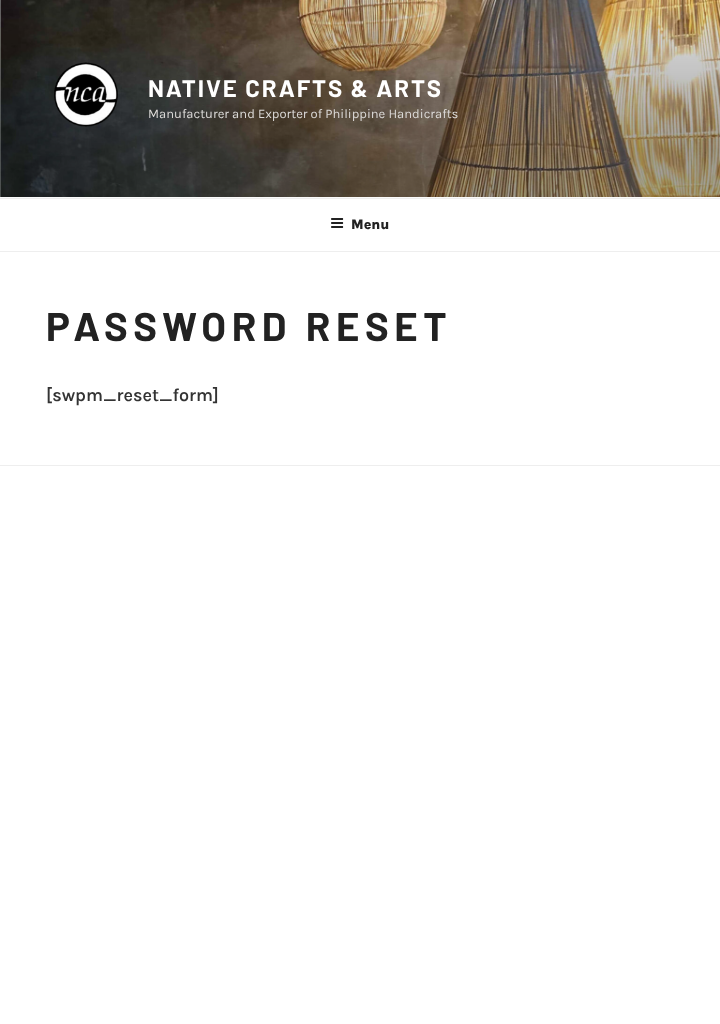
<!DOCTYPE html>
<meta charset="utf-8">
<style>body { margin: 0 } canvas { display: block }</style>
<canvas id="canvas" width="720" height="1024"></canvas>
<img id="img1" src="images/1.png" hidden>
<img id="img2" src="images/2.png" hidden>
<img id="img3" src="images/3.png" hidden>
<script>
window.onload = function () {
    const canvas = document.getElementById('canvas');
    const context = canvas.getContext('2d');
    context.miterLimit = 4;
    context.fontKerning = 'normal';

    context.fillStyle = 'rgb(255, 255, 255)';
    context.fillRect(0, 0, 720, 1024);
    context.fillStyle = 'rgb(250, 250, 250)';
    context.fillRect(0, 197, 720, 1);
    context.drawImage(document.getElementById('img1'), 0, 0, 720, 197);
    context.drawImage(document.getElementById('img2'), 54, 62, 64, 65);
    context.fillStyle = 'rgb(238, 238, 238)';
    context.fillRect(0, 198, 720, 1);
    context.fillRect(0, 251, 720, 1);
    context.drawImage(document.getElementById('img3'), 331, 218, 13, 10);
    context.fillRect(0, 465, 720, 1);
    context.letterSpacing = '1.9px';
    context.font = 'bold 24px Barlow';
    context.fillStyle = 'rgb(255, 255, 255)';
    context.fillText('NATIVE CRAFTS & ARTS', 148, 97);
    context.letterSpacing = '0px';
    context.font = '13px Karla';
    context.fillStyle = 'rgb(220, 218, 216)';
    context.fillText('Manufacturer and Exporter of Philippine Handicrafts', 148, 118);
    context.font = '800 14px Karla';
    context.fillStyle = 'rgb(34, 34, 34)';
    context.fillText('Menu', 351, 229);
    context.letterSpacing = '5.6px';
    context.font = 'bold 40px Barlow';
    context.fillText('PASSWORD RESET', 46, 341);
    context.letterSpacing = '0px';
    context.font = '600 18px Karla';
    context.fillStyle = 'rgb(51, 51, 51)';
    context.fillText('[swpm_reset_form]', 46, 401);
};
</script>
